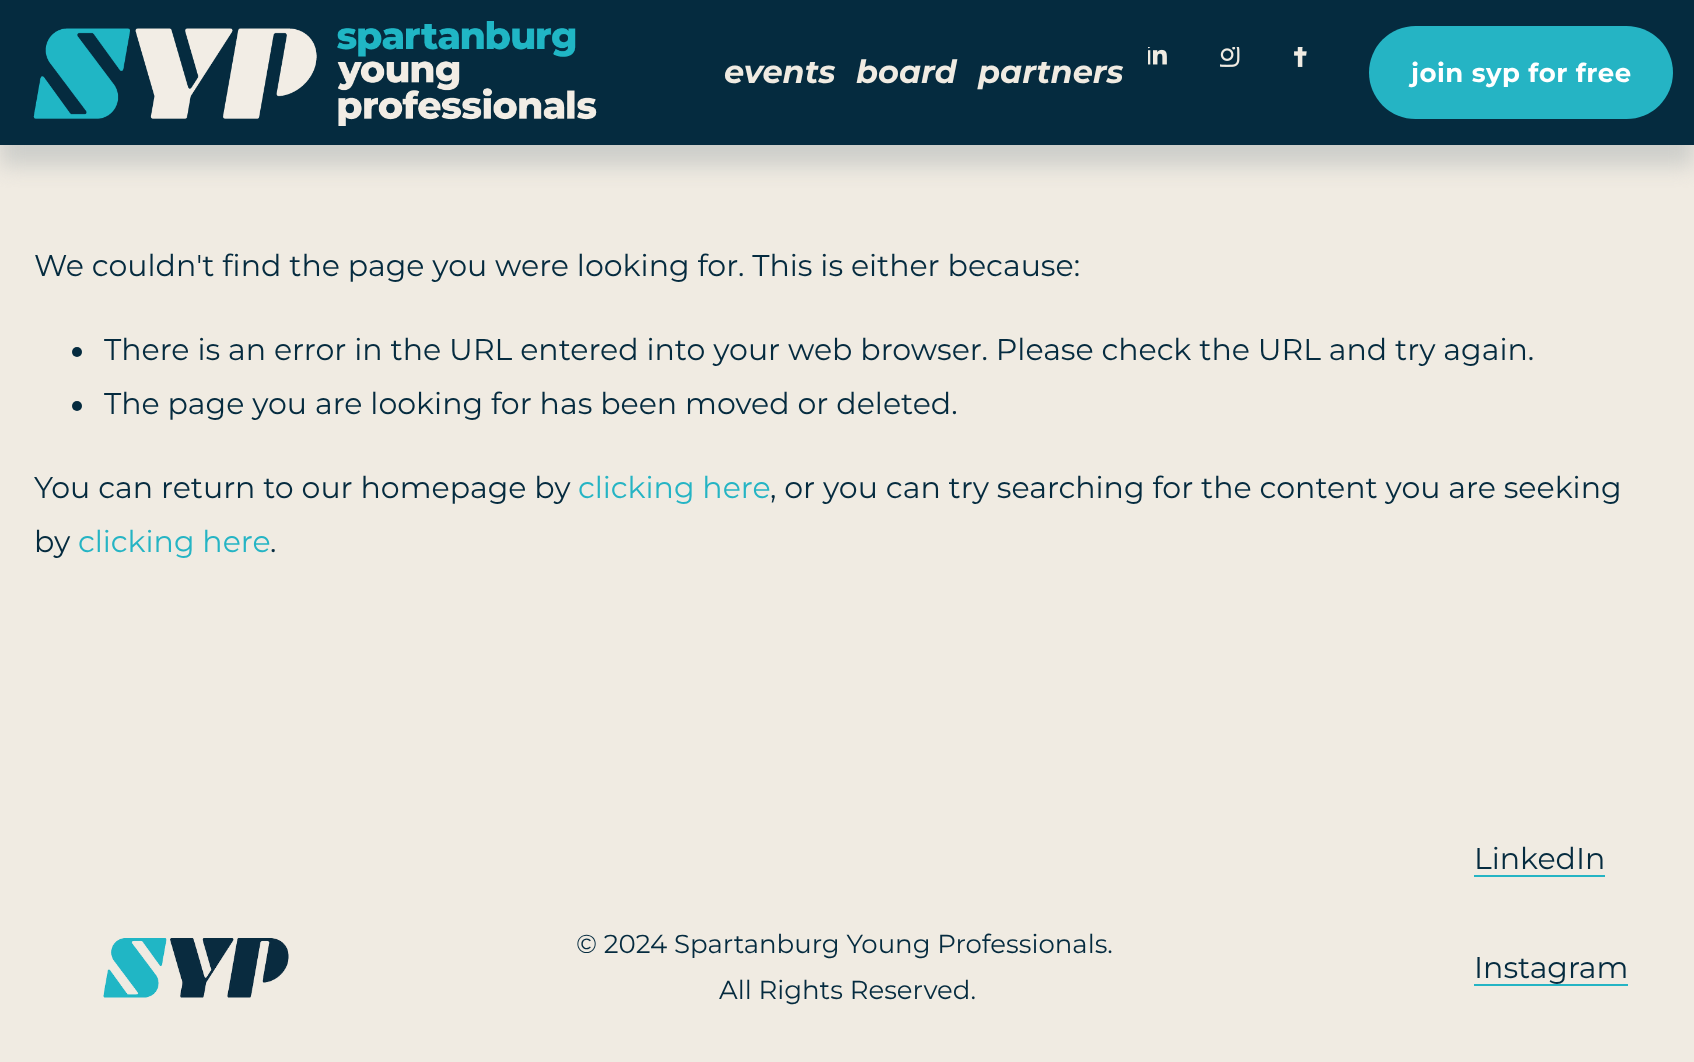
<!DOCTYPE html>
<meta charset="utf-8">
<style>body { margin: 0 } canvas { display: block }</style>
<canvas id="canvas" width="1694" height="1062"></canvas>
<img id="img1" src="images/1.png" hidden>
<img id="img2" src="images/2.png" hidden>
<img id="img3" src="images/3.png" hidden>
<img id="img4" src="images/4.png" hidden>
<img id="img5" src="images/5.png" hidden>
<script>
window.onload = function () {
    const canvas = document.getElementById('canvas');
    const context = canvas.getContext('2d');
    context.miterLimit = 4;
    context.fontKerning = 'normal';

    context.fillStyle = 'rgb(240, 235, 226)';
    context.fillRect(0, 0, 1694, 1062);
    context.fillStyle = 'rgb(5, 43, 63)';
    context.fillRect(0, 0, 1694, 145);
    context.save();
    context.beginPath();
    context.rect(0, 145, 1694, 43);
    context.clip();
    context.fillStyle = 'rgb(205, 206, 202)';
    context.filter = 'blur(10.5px)';
    context.beginPath();
    context.rect(0, 21, 1694, 145);
    context.fill();
    context.filter = 'none';
    context.restore();
    context.drawImage(document.getElementById('img1'), 33, 21, 564, 105);
    context.drawImage(document.getElementById('img2'), 1148, 47, 19, 18);
    context.drawImage(document.getElementById('img3'), 1220, 47, 20, 20);
    context.drawImage(document.getElementById('img4'), 1294, 47, 13, 20);
    context.fillStyle = 'rgb(37, 180, 196)';
    context.beginPath();
    context.roundRect(1369, 26, 304, 93, 46.5);
    context.fill();
    context.fillStyle = 'rgb(5, 43, 63)';
    context.beginPath();
    context.arc(77, 352, 5, 0, 2 * Math.PI);
    context.fill();
    context.beginPath();
    context.arc(77, 406, 5, 0, 2 * Math.PI);
    context.fill();
    context.drawImage(document.getElementById('img5'), 103, 938, 186, 60);
    context.fillStyle = 'rgb(37, 180, 196)';
    context.fillRect(1474, 875, 131, 2);
    context.fillRect(1474, 984, 154, 2);
    context.font = 'italic bold 32px Montserrat';
    context.fillStyle = 'rgb(240, 235, 226)';
    context.fillText('events', 724, 83);
    context.fillText('board', 856, 83);
    context.fillText('partners', 978, 83);
    context.letterSpacing = '0.5px';
    context.font = 'bold 26px Montserrat';
    context.fillStyle = 'rgb(255, 255, 255)';
    context.fillText('join syp for free', 1411, 82);
    context.letterSpacing = '0px';
    context.font = '30.05px Montserrat';
    context.fillStyle = 'rgb(5, 43, 63)';
    context.fillText('We couldn\'t find the page you were looking for. This is either because:', 34, 276);
    context.fillText('There is an error in the URL entered into your web browser. Please check the URL and try again.', 104, 360);
    context.fillText('The page you are looking for has been moved or deleted.', 104, 414);
    context.fillText('You can return to our homepage by', 34, 498);
    context.fillStyle = 'rgb(37, 180, 196)';
    context.fillText('clicking here', 578, 498);
    context.fillStyle = 'rgb(5, 43, 63)';
    context.fillText(', or you can try searching for the content you are seeking', 770, 498);
    context.fillText('by', 34, 552);
    context.fillStyle = 'rgb(37, 180, 196)';
    context.fillText('clicking here', 78, 552);
    context.fillStyle = 'rgb(5, 43, 63)';
    context.fillText('.', 270, 552);
    context.font = '26px Montserrat';
    context.fillText('© 2024 Spartanburg Young Professionals.', 576, 953);
    context.fillText('All Rights Reserved.', 719, 999);
    context.font = '30.05px Montserrat';
    context.fillText('LinkedIn', 1474, 869);
    context.fillText('Instagram', 1474, 978);
};
</script>
